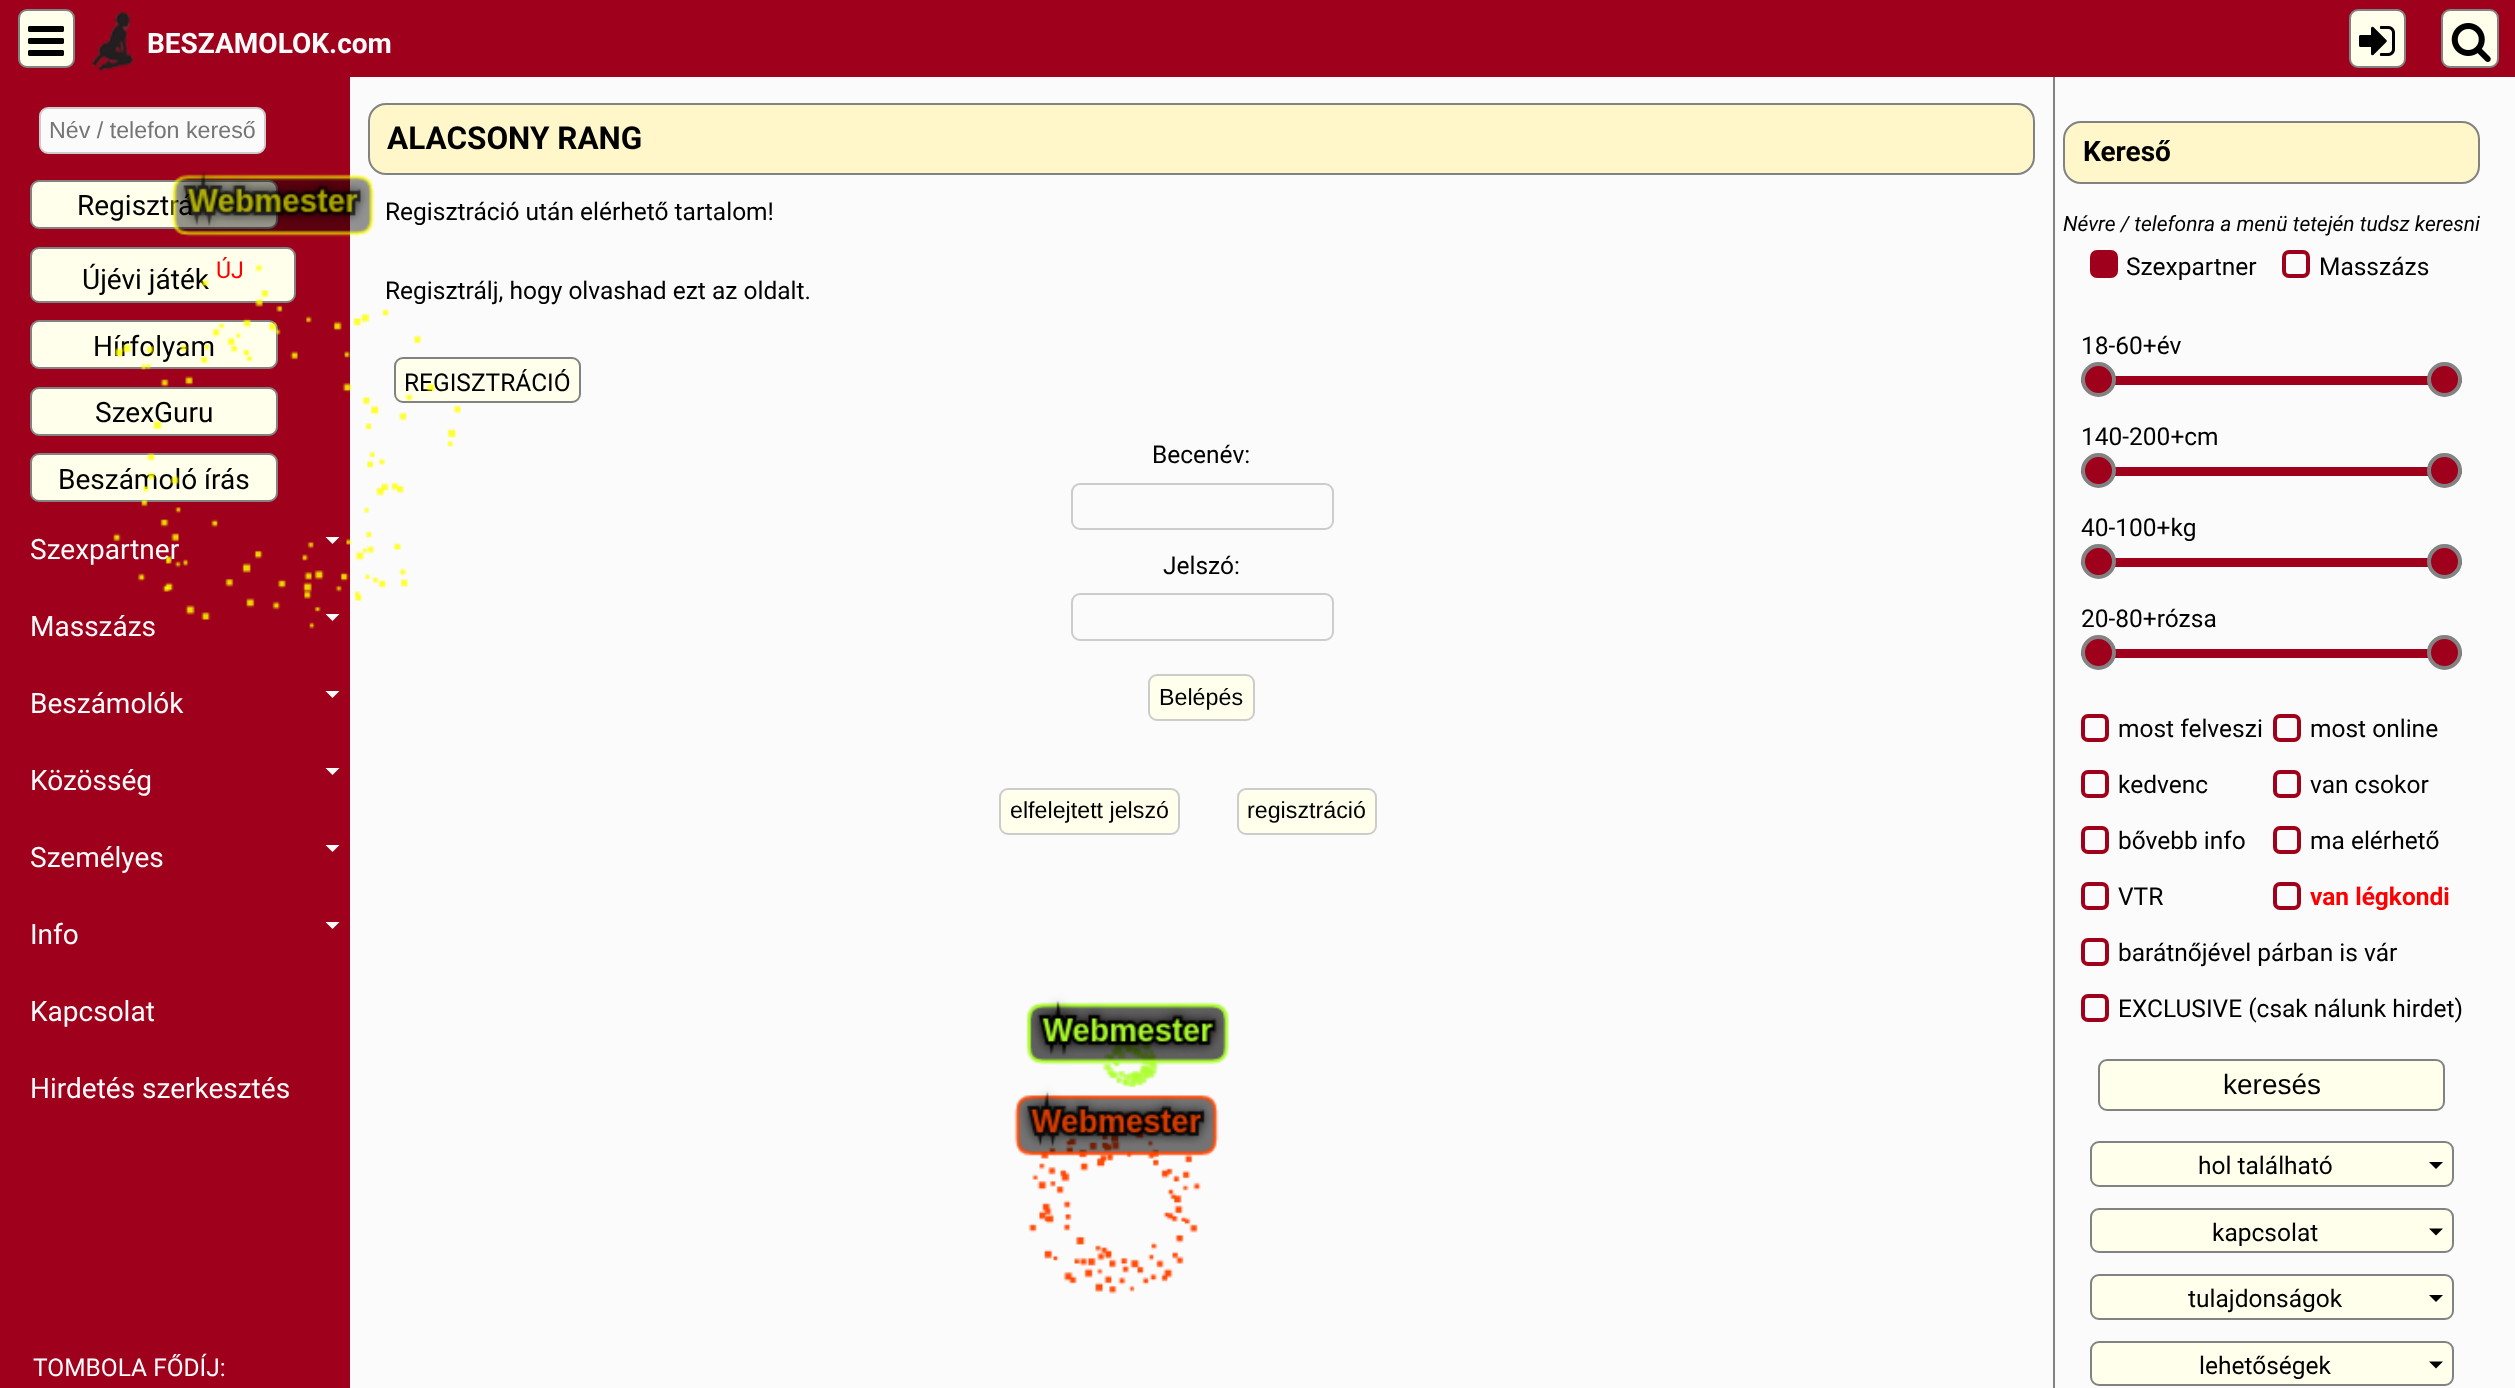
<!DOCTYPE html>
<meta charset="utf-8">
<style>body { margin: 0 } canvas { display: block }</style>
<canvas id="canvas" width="2515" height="1388"></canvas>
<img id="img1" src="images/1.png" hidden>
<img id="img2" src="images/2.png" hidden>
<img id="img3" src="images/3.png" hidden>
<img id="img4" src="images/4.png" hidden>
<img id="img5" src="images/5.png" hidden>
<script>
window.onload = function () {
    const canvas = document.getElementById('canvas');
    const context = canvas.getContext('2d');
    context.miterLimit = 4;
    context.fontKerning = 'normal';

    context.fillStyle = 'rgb(251, 251, 251)';
    context.fillRect(0, 0, 2515, 1388);
    context.fillStyle = 'rgb(159, 0, 27)';
    context.fillRect(0, 0, 2515, 77);
    context.fillStyle = 'rgb(255, 255, 235)';
    context.beginPath();
    context.roundRect(19, 10, 55, 57, 8);
    context.fill();
    context.strokeStyle = 'rgb(130, 130, 130)';
    context.lineWidth = 2;
    context.stroke();
    context.drawImage(document.getElementById('img1'), 28, 26, 36, 30);
    context.drawImage(document.getElementById('img2'), 92, 12, 42, 60);
    context.beginPath();
    context.roundRect(2350, 10, 55, 57, 8);
    context.fill();
    context.stroke();
    context.drawImage(document.getElementById('img3'), 2359, 26, 36, 30);
    context.beginPath();
    context.roundRect(2442, 10, 56, 57, 8);
    context.fill();
    context.stroke();
    context.drawImage(document.getElementById('img4'), 2451, 23, 40, 39);
    context.fillStyle = 'rgb(159, 0, 27)';
    context.fillRect(0, 77, 350, 1311);
    context.fillStyle = 'rgb(251, 251, 251)';
    context.beginPath();
    context.roundRect(40, 108, 225, 45, 8);
    context.fill();
    context.strokeStyle = 'rgb(204, 204, 204)';
    context.stroke();
    context.fillStyle = 'rgb(255, 255, 235)';
    context.beginPath();
    context.roundRect(31, 181, 246, 47, 8);
    context.fill();
    context.strokeStyle = 'rgb(130, 130, 130)';
    context.stroke();
    context.beginPath();
    context.roundRect(31, 248, 264, 54, 8);
    context.fill();
    context.stroke();
    context.beginPath();
    context.roundRect(31, 321, 246, 47, 8);
    context.fill();
    context.stroke();
    context.beginPath();
    context.roundRect(31, 388, 246, 47, 8);
    context.fill();
    context.stroke();
    context.beginPath();
    context.roundRect(31, 454, 246, 47, 8);
    context.fill();
    context.stroke();
    context.fillStyle = 'rgb(251, 251, 251)';
    context.beginPath();
    context.moveTo(325.5, 537);
    context.lineTo(339.5, 537);
    context.lineTo(332.5, 544);
    context.closePath();
    context.fill();
    context.beginPath();
    context.moveTo(325.5, 614);
    context.lineTo(339.5, 614);
    context.lineTo(332.5, 621);
    context.closePath();
    context.fill();
    context.beginPath();
    context.moveTo(325.5, 691);
    context.lineTo(339.5, 691);
    context.lineTo(332.5, 698);
    context.closePath();
    context.fill();
    context.beginPath();
    context.moveTo(325.5, 768);
    context.lineTo(339.5, 768);
    context.lineTo(332.5, 775);
    context.closePath();
    context.fill();
    context.beginPath();
    context.moveTo(325.5, 845);
    context.lineTo(339.5, 845);
    context.lineTo(332.5, 852);
    context.closePath();
    context.fill();
    context.beginPath();
    context.moveTo(325.5, 922);
    context.lineTo(339.5, 922);
    context.lineTo(332.5, 929);
    context.closePath();
    context.fill();
    context.fillStyle = 'rgb(255, 247, 202)';
    context.beginPath();
    context.roundRect(369, 104, 1665, 70, 17);
    context.fill();
    context.stroke();
    context.fillStyle = 'rgb(255, 255, 235)';
    context.beginPath();
    context.roundRect(395, 358, 185, 44, 8);
    context.fill();
    context.stroke();
    context.beginPath();
    context.roundRect(1072, 484, 261, 45, 8);
    context.strokeStyle = 'rgb(204, 204, 204)';
    context.stroke();
    context.beginPath();
    context.roundRect(1072, 594, 261, 46, 8);
    context.stroke();
    context.beginPath();
    context.roundRect(1149, 675, 105, 45, 8);
    context.fill();
    context.stroke();
    context.beginPath();
    context.roundRect(1000, 789, 179, 45, 8);
    context.fill();
    context.stroke();
    context.beginPath();
    context.roundRect(1238, 789, 138, 45, 8);
    context.fill();
    context.stroke();
    context.fillStyle = 'rgb(130, 130, 130)';
    context.fillRect(2053, 77, 2, 1311);
    context.fillStyle = 'rgb(255, 247, 202)';
    context.beginPath();
    context.roundRect(2064, 122, 415, 61, 17);
    context.fill();
    context.strokeStyle = 'rgb(130, 130, 130)';
    context.stroke();
    context.fillStyle = 'rgb(159, 0, 27)';
    context.beginPath();
    context.roundRect(2092, 252, 24, 24, 5);
    context.fill();
    context.strokeStyle = 'rgb(159, 0, 27)';
    context.lineWidth = 4;
    context.stroke();
    context.beginPath();
    context.roundRect(2284, 252, 24, 24, 5);
    context.stroke();
    context.beginPath();
    context.roundRect(2081, 376, 381, 9, 4.5);
    context.fill();
    context.beginPath();
    context.arc(2098.5, 379.5, 15.5, 0, 2 * Math.PI);
    context.fill();
    context.strokeStyle = 'rgb(130, 130, 130)';
    context.stroke();
    context.beginPath();
    context.arc(2444.5, 379.5, 15.5, 0, 2 * Math.PI);
    context.fill();
    context.stroke();
    context.beginPath();
    context.roundRect(2081, 467, 381, 9, 4.5);
    context.fill();
    context.beginPath();
    context.arc(2098.5, 470.5, 15.5, 0, 2 * Math.PI);
    context.fill();
    context.stroke();
    context.beginPath();
    context.arc(2444.5, 470.5, 15.5, 0, 2 * Math.PI);
    context.fill();
    context.stroke();
    context.beginPath();
    context.roundRect(2081, 558, 381, 9, 4.5);
    context.fill();
    context.beginPath();
    context.arc(2098.5, 561.5, 15.5, 0, 2 * Math.PI);
    context.fill();
    context.stroke();
    context.beginPath();
    context.arc(2444.5, 561.5, 15.5, 0, 2 * Math.PI);
    context.fill();
    context.stroke();
    context.beginPath();
    context.roundRect(2081, 649, 381, 9, 4.5);
    context.fill();
    context.beginPath();
    context.arc(2098.5, 652.5, 15.5, 0, 2 * Math.PI);
    context.fill();
    context.stroke();
    context.beginPath();
    context.arc(2444.5, 652.5, 15.5, 0, 2 * Math.PI);
    context.fill();
    context.stroke();
    context.beginPath();
    context.roundRect(2083, 716, 24, 24, 5);
    context.strokeStyle = 'rgb(159, 0, 27)';
    context.stroke();
    context.beginPath();
    context.roundRect(2275, 716, 24, 24, 5);
    context.stroke();
    context.beginPath();
    context.roundRect(2083, 772, 24, 24, 5);
    context.stroke();
    context.beginPath();
    context.roundRect(2275, 772, 24, 24, 5);
    context.stroke();
    context.beginPath();
    context.roundRect(2083, 828, 24, 24, 5);
    context.stroke();
    context.beginPath();
    context.roundRect(2275, 828, 24, 24, 5);
    context.stroke();
    context.beginPath();
    context.roundRect(2083, 884, 24, 24, 5);
    context.stroke();
    context.beginPath();
    context.roundRect(2275, 884, 24, 24, 5);
    context.stroke();
    context.beginPath();
    context.roundRect(2083, 940, 24, 24, 5);
    context.stroke();
    context.beginPath();
    context.roundRect(2083, 996, 24, 24, 5);
    context.stroke();
    context.fillStyle = 'rgb(255, 255, 235)';
    context.beginPath();
    context.roundRect(2099, 1060, 345, 50, 8);
    context.fill();
    context.strokeStyle = 'rgb(130, 130, 130)';
    context.lineWidth = 2;
    context.stroke();
    context.beginPath();
    context.roundRect(2091, 1142, 362, 44, 8);
    context.fill();
    context.stroke();
    context.fillStyle = 'rgb(0, 0, 0)';
    context.beginPath();
    context.moveTo(2429, 1162);
    context.lineTo(2443, 1162);
    context.lineTo(2436, 1169);
    context.closePath();
    context.fill();
    context.fillStyle = 'rgb(255, 255, 235)';
    context.beginPath();
    context.roundRect(2091, 1209, 362, 43, 8);
    context.fill();
    context.stroke();
    context.fillStyle = 'rgb(0, 0, 0)';
    context.beginPath();
    context.moveTo(2429, 1228.5);
    context.lineTo(2443, 1228.5);
    context.lineTo(2436, 1235.5);
    context.closePath();
    context.fill();
    context.fillStyle = 'rgb(255, 255, 235)';
    context.beginPath();
    context.roundRect(2091, 1275, 362, 44, 8);
    context.fill();
    context.stroke();
    context.fillStyle = 'rgb(0, 0, 0)';
    context.beginPath();
    context.moveTo(2429, 1295);
    context.lineTo(2443, 1295);
    context.lineTo(2436, 1302);
    context.closePath();
    context.fill();
    context.fillStyle = 'rgb(255, 255, 235)';
    context.beginPath();
    context.roundRect(2091, 1342, 362, 43, 8);
    context.fill();
    context.stroke();
    context.fillStyle = 'rgb(0, 0, 0)';
    context.beginPath();
    context.moveTo(2429, 1361.5);
    context.lineTo(2443, 1361.5);
    context.lineTo(2436, 1368.5);
    context.closePath();
    context.fill();
    context.font = 'bold 28px Roboto';
    context.fillStyle = 'rgb(251, 251, 251)';
    context.fillText('BESZAMOLOK.com', 147, 53);
    context.font = '23.25px Liberation Sans';
    context.fillStyle = 'rgb(117, 117, 117)';
    context.fillText('Név / telefon kereső', 49, 138);
    context.font = '28px Roboto';
    context.fillStyle = 'rgb(0, 0, 0)';
    context.fillText('Regisztrá', 77, 215);
    context.fillText('Újévi játék', 82, 289);
    context.font = '23.25px Roboto';
    context.fillStyle = 'rgb(255, 0, 0)';
    context.fillText('ÚJ', 216, 278);
    context.font = '28px Roboto';
    context.fillStyle = 'rgb(0, 0, 0)';
    context.fillText('Hírfolyam', 93, 356);
    context.fillText('SzexGuru', 95, 422);
    context.fillText('Beszámoló írás', 58, 489);
    context.fillStyle = 'rgb(251, 251, 251)';
    context.fillText('Szexpartner', 30, 559);
    context.fillText('Masszázs', 30, 636);
    context.fillText('Beszámolók', 30, 713);
    context.fillText('Közösség', 30, 790);
    context.fillText('Személyes', 30, 867);
    context.fillText('Info', 30, 944);
    context.fillText('Kapcsolat', 30, 1021);
    context.fillText('Hirdetés szerkesztés', 30, 1098);
    context.font = '24.5px Roboto';
    context.fillText('TOMBOLA FŐDÍJ:', 33, 1376);
    context.font = 'bold 31.5px Roboto';
    context.fillStyle = 'rgb(0, 0, 0)';
    context.fillText('ALACSONY RANG', 387, 149);
    context.font = '24.5px Roboto';
    context.fillText('Regisztráció után elérhető tartalom!', 385, 220);
    context.fillText('Regisztrálj, hogy olvashad ezt az oldalt.', 385, 299);
    context.fillText('REGISZTRÁCIÓ', 404, 391);
    context.fillText('Becenév:', 1152, 463);
    context.fillText('Jelszó:', 1163, 574);
    context.font = '23.25px Liberation Sans';
    context.fillText('Belépés', 1159, 705);
    context.fillText('elfelejtett jelszó', 1010, 818);
    context.fillText('regisztráció', 1247, 818);
    context.font = 'bold 28px Roboto';
    context.fillText('Kereső', 2083, 161);
    context.font = 'italic 21px Roboto';
    context.fillText('Névre / telefonra a menü tetején tudsz keresni', 2063, 231);
    context.font = '24.5px Roboto';
    context.fillText('Szexpartner', 2126, 275);
    context.fillText('Masszázs', 2319, 275);
    context.fillText('18-60+év', 2081, 354);
    context.fillText('140-200+cm', 2081, 445);
    context.fillText('40-100+kg', 2081, 536);
    context.fillText('20-80+rózsa', 2081, 627);
    context.fillText('most felveszi', 2118, 737);
    context.fillText('most online', 2310, 737);
    context.fillText('kedvenc', 2118, 793);
    context.fillText('van csokor', 2310, 793);
    context.fillText('bővebb info', 2118, 849);
    context.fillText('ma elérhető', 2310, 849);
    context.fillText('VTR', 2118, 905);
    context.font = 'bold 24.5px Roboto';
    context.fillStyle = 'rgb(255, 0, 0)';
    context.fillText('van légkondi', 2310, 905);
    context.font = '24.5px Roboto';
    context.fillStyle = 'rgb(0, 0, 0)';
    context.fillText('barátnőjével párban is vár', 2118, 961);
    context.fillText('EXCLUSIVE (csak nálunk hirdet)', 2118, 1017);
    context.font = '28px Liberation Sans';
    context.fillText('keresés', 2223, 1094);
    context.font = '24.5px Roboto';
    context.fillText('hol található', 2198, 1174);
    context.fillText('kapcsolat', 2212, 1241);
    context.fillText('tulajdonságok', 2188, 1307);
    context.fillText('lehetőségek', 2199, 1374);
    context.drawImage(document.getElementById('img5'), 113, 171, 1116, 1123);
};
</script>
